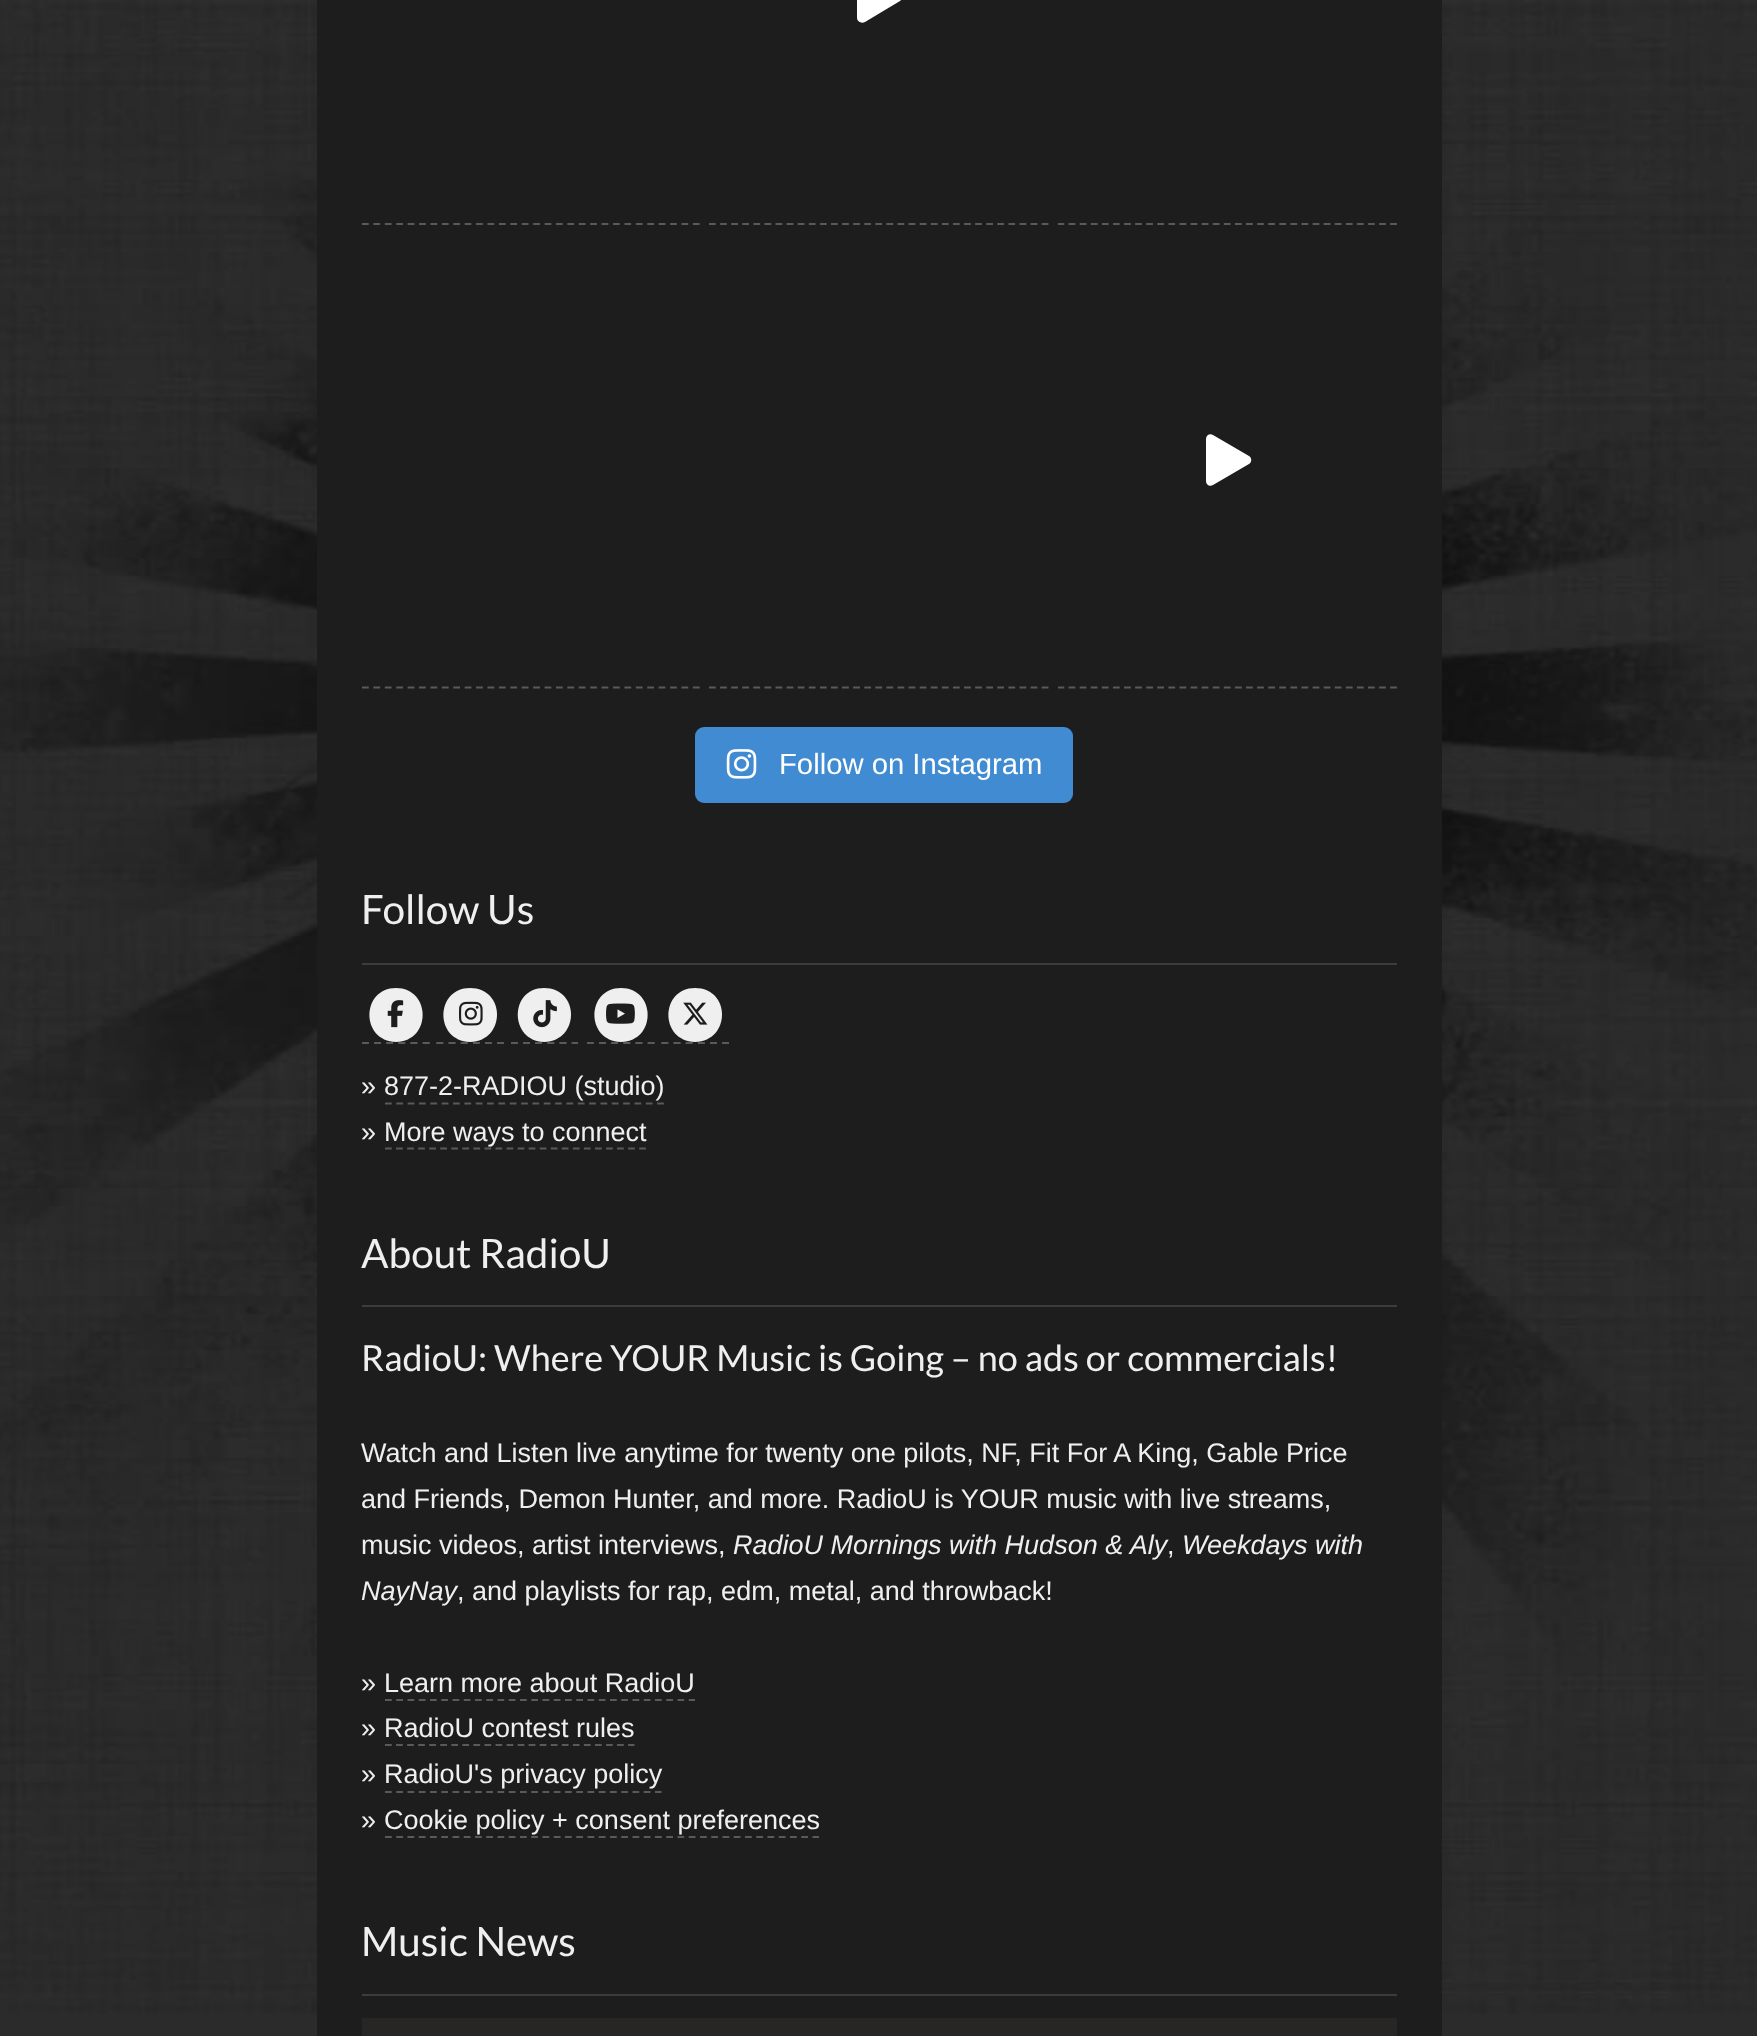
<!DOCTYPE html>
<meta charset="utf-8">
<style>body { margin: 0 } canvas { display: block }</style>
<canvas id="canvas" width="1757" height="2036"></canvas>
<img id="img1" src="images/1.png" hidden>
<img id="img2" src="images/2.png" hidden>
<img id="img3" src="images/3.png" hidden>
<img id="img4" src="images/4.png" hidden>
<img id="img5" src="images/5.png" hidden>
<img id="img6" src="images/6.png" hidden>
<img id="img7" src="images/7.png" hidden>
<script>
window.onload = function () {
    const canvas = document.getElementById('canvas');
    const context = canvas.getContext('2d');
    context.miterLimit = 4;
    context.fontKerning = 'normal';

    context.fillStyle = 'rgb(43, 43, 43)';
    context.fillRect(0, 0, 1757, 2036);
    context.drawImage(document.getElementById('img1'), 0, 0, 1757, 2014);
    context.fillStyle = 'rgb(30, 29, 29)';
    context.fillRect(317, 0, 1125, 2036);
    context.save();
    context.beginPath();
    context.rect(362, 0, 338, 225);
    context.clip();
    context.beginPath();
    context.moveTo(362, 224);
    context.lineTo(700, 224);
    context.strokeStyle = 'rgb(91, 90, 89)';
    context.lineWidth = 2.2;
    context.setLineDash([6.75, 4.66]);
    context.stroke();
    context.restore();
    context.save();
    context.beginPath();
    context.rect(709, 0, 340, 225);
    context.clip();
    context.beginPath();
    context.moveTo(709, 224);
    context.lineTo(1048.5, 224);
    context.strokeStyle = 'rgb(91, 90, 89)';
    context.lineWidth = 2.2;
    context.setLineDash([6.75, 4.34]);
    context.stroke();
    context.restore();
    context.fillStyle = 'rgb(255, 255, 255)';
    context.beginPath();
    context.moveTo(900, -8);
    context.lineTo(865, -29);
    context.bezierCurveTo(862, -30, 857, -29, 857, -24);
    context.lineTo(857, 18);
    context.bezierCurveTo(857, 21, 861, 24, 865, 22);
    context.lineTo(900, 1);
    context.bezierCurveTo(903, -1, 903, -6, 900, -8);
    context.closePath();
    context.fill();
    context.save();
    context.beginPath();
    context.rect(1058, 0, 339, 225);
    context.clip();
    context.beginPath();
    context.moveTo(1057.5, 224);
    context.lineTo(1397, 224);
    context.strokeStyle = 'rgb(91, 90, 89)';
    context.lineWidth = 2.2;
    context.setLineDash([6.75, 4.34]);
    context.stroke();
    context.restore();
    context.beginPath();
    context.moveTo(362, 687.5);
    context.lineTo(700, 687.5);
    context.strokeStyle = 'rgb(91, 90, 89)';
    context.lineWidth = 2.2;
    context.setLineDash([6.75, 4.66]);
    context.stroke();
    context.beginPath();
    context.moveTo(709, 687.5);
    context.lineTo(1048.5, 687.5);
    context.setLineDash([6.75, 4.34]);
    context.stroke();
    context.save();
    context.beginPath();
    context.rect(1058, 234, 339, 455);
    context.clip();
    context.beginPath();
    context.moveTo(1057.5, 687.5);
    context.lineTo(1397, 687.5);
    context.stroke();
    context.restore();
    context.beginPath();
    context.moveTo(1249, 456);
    context.lineTo(1213, 435);
    context.bezierCurveTo(1210, 433, 1206, 435, 1206, 439);
    context.lineTo(1206, 481);
    context.bezierCurveTo(1206, 485, 1210, 487, 1213, 485);
    context.lineTo(1249, 464);
    context.bezierCurveTo(1252, 462, 1252, 458, 1249, 456);
    context.closePath();
    context.fill();
    context.fillStyle = 'rgb(64, 139, 209)';
    context.beginPath();
    context.roundRect(695, 727, 378, 76, 9);
    context.fill();
    context.drawImage(document.getElementById('img2'), 726, 749, 31, 30);
    context.fillStyle = 'rgb(60, 60, 58)';
    context.fillRect(362, 963, 1035, 2);
    context.beginPath();
    context.moveTo(362, 1043);
    context.lineTo(430, 1043);
    context.setLineDash([6.75, 5.4]);
    context.stroke();
    context.beginPath();
    context.moveTo(362, 1043);
    context.lineTo(430, 1043);
    context.stroke();
    context.fillStyle = 'rgb(239, 239, 239)';
    context.beginPath();
    context.moveTo(396, 1042);
    context.bezierCurveTo(432, 1041, 431, 988, 396, 988);
    context.bezierCurveTo(361, 988, 360, 1041, 396, 1042);
    context.closePath();
    context.fill();
    context.drawImage(document.getElementById('img3'), 387, 1000, 17, 28);
    context.beginPath();
    context.moveTo(436.5, 1043);
    context.lineTo(504, 1043);
    context.stroke();
    context.beginPath();
    context.moveTo(436.5, 1043);
    context.lineTo(504, 1043);
    context.stroke();
    context.beginPath();
    context.moveTo(470, 1042);
    context.bezierCurveTo(506, 1041, 506, 988, 470, 988);
    context.bezierCurveTo(435, 988, 434, 1041, 470, 1042);
    context.closePath();
    context.fill();
    context.drawImage(document.getElementById('img4'), 459, 1001, 24, 25);
    context.beginPath();
    context.moveTo(511, 1043);
    context.lineTo(578, 1043);
    context.stroke();
    context.beginPath();
    context.moveTo(511, 1043);
    context.lineTo(578, 1043);
    context.stroke();
    context.beginPath();
    context.moveTo(544, 1042);
    context.bezierCurveTo(580, 1041, 580, 988, 544, 988);
    context.bezierCurveTo(509, 988, 509, 1041, 544, 1042);
    context.closePath();
    context.fill();
    context.drawImage(document.getElementById('img5'), 533, 1000, 24, 28);
    context.beginPath();
    context.moveTo(587, 1043);
    context.lineTo(655, 1043);
    context.stroke();
    context.beginPath();
    context.moveTo(587, 1043);
    context.lineTo(655, 1043);
    context.stroke();
    context.beginPath();
    context.moveTo(621, 1042);
    context.bezierCurveTo(657, 1041, 656, 988, 621, 988);
    context.bezierCurveTo(586, 988, 585, 1041, 621, 1042);
    context.closePath();
    context.fill();
    context.drawImage(document.getElementById('img6'), 606, 1003, 29, 21);
    context.beginPath();
    context.moveTo(661.5, 1043);
    context.lineTo(729, 1043);
    context.stroke();
    context.beginPath();
    context.moveTo(661.5, 1043);
    context.lineTo(729, 1043);
    context.stroke();
    context.beginPath();
    context.moveTo(695, 1042);
    context.bezierCurveTo(731, 1041, 731, 988, 695, 988);
    context.bezierCurveTo(660, 988, 659, 1041, 695, 1042);
    context.closePath();
    context.fill();
    context.drawImage(document.getElementById('img7'), 683, 1002, 25, 23);
    context.beginPath();
    context.moveTo(385, 1103.5);
    context.lineTo(664, 1103.5);
    context.setLineDash([6.75, 4.59]);
    context.stroke();
    context.beginPath();
    context.moveTo(385, 1148.5);
    context.lineTo(646, 1148.5);
    context.setLineDash([6.75, 4.3]);
    context.stroke();
    context.fillStyle = 'rgb(60, 60, 58)';
    context.fillRect(362, 1305, 1035, 2);
    context.beginPath();
    context.moveTo(385, 1700);
    context.lineTo(695, 1700);
    context.setLineDash([6.75, 4.5]);
    context.stroke();
    context.beginPath();
    context.moveTo(385, 1745);
    context.lineTo(634.5, 1745);
    context.setLineDash([6.75, 4.3]);
    context.stroke();
    context.beginPath();
    context.moveTo(385, 1792);
    context.lineTo(661.5, 1792);
    context.setLineDash([6.75, 4.5]);
    context.stroke();
    context.beginPath();
    context.moveTo(385, 1837);
    context.lineTo(819, 1837);
    context.stroke();
    context.fillRect(362, 1994, 1035, 2);
    context.fillStyle = 'rgb(39, 38, 37)';
    context.fillRect(362, 2018, 1035, 18);
    context.font = '29.25px Liberation Sans';
    context.fillStyle = 'rgb(255, 255, 255)';
    context.fillText('Follow on Instagram', 779, 774);
    context.font = '40.5px Lato';
    context.fillStyle = 'rgb(239, 239, 239)';
    context.fillText('Follow Us', 361, 924);
    context.font = '27px Liberation Sans';
    context.fillText('»', 361, 1095);
    context.fillText('877-2-RADIOU (studio)', 384, 1095);
    context.fillText('»', 361, 1141);
    context.fillText('More ways to connect', 384, 1141);
    context.font = '40.5px Lato';
    context.fillText('About RadioU', 361, 1268);
    context.font = '36px Lato';
    context.fillText('RadioU: Where YOUR Music is Going – no ads or commercials!', 361, 1371);
    context.font = '27px Liberation Sans';
    context.fillText('Watch and Listen live anytime for twenty one pilots, NF, Fit For A King, Gable Price', 361, 1462);
    context.fillText('and Friends, Demon Hunter, and more. RadioU is YOUR music with live streams,', 361, 1508);
    context.fillText('music videos, artist interviews,', 361, 1554);
    context.font = 'italic 27px Liberation Sans';
    context.fillText('RadioU Mornings with Hudson & Aly', 733, 1554);
    context.font = '27px Liberation Sans';
    context.fillText(',', 1167, 1554);
    context.font = 'italic 27px Liberation Sans';
    context.fillText('Weekdays with', 1182, 1554);
    context.fillText('NayNay', 361, 1600);
    context.font = '27px Liberation Sans';
    context.fillText(', and playlists for rap, edm, metal, and throwback!', 457, 1600);
    context.fillText('»', 361, 1692);
    context.fillText('Learn more about RadioU', 384, 1692);
    context.fillText('»', 361, 1737);
    context.fillText('RadioU contest rules', 384, 1737);
    context.fillText('»', 361, 1783);
    context.fillText('RadioU\'s privacy policy', 384, 1783);
    context.fillText('»', 361, 1829);
    context.fillText('Cookie policy + consent preferences', 384, 1829);
    context.font = '40.5px Lato';
    context.fillText('Music News', 361, 1956);
};
</script>
